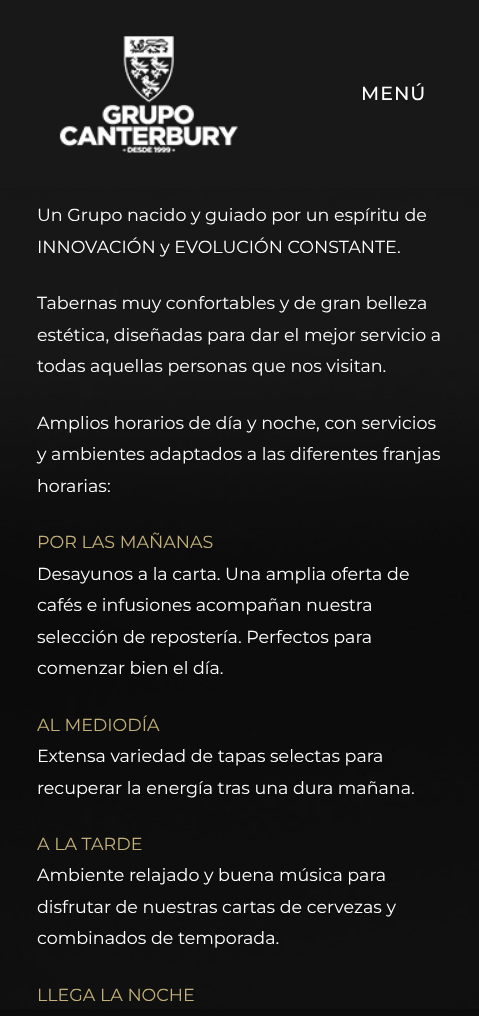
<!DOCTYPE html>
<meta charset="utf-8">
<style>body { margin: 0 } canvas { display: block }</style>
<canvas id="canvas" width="479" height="1016"></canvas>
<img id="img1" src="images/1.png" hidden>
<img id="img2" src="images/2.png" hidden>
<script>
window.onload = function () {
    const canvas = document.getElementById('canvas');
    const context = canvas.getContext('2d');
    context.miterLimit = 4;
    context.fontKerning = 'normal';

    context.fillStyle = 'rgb(12, 12, 12)';
    context.fillRect(0, 0, 479, 1016);
    context.drawImage(document.getElementById('img1'), 0, 188, 479, 821);
    context.fillStyle = 'rgb(24, 24, 24)';
    context.fillRect(0, 0, 479, 188);
    context.drawImage(document.getElementById('img2'), 59, 36, 179, 117);
    context.letterSpacing = '1px';
    context.font = '500 19px Montserrat';
    context.fillStyle = 'rgb(255, 255, 255)';
    context.fillText('MENÚ', 361, 100);
    context.letterSpacing = '0px';
    context.font = '17.5px Montserrat';
    context.fillText('Un Grupo nacido y guiado por un espíritu de', 37, 221);
    context.fillText('INNOVACIÓN y EVOLUCIÓN CONSTANTE.', 37, 253);
    context.fillText('Tabernas muy confortables y de gran belleza', 37, 309);
    context.fillText('estética, diseñadas para dar el mejor servicio a', 37, 341);
    context.fillText('todas aquellas personas que nos visitan.', 37, 372);
    context.fillText('Amplios horarios de día y noche, con servicios', 37, 429);
    context.fillText('y ambientes adaptados a las diferentes franjas', 37, 460);
    context.fillText('horarias:', 37, 492);
    context.fillStyle = 'rgb(195, 177, 121)';
    context.fillText('POR LAS MAÑANAS', 37, 548);
    context.fillStyle = 'rgb(255, 255, 255)';
    context.fillText('Desayunos a la carta. Una amplia oferta de', 37, 580);
    context.fillText('cafés e infusiones acompañan nuestra', 37, 611);
    context.fillText('selección de repostería. Perfectos para', 37, 643);
    context.fillText('comenzar bien el día.', 37, 674);
    context.fillStyle = 'rgb(195, 177, 121)';
    context.fillText('AL MEDIODÍA', 37, 731);
    context.fillStyle = 'rgb(255, 255, 255)';
    context.fillText('Extensa variedad de tapas selectas para', 37, 762);
    context.fillText('recuperar la energía tras una dura mañana.', 37, 794);
    context.fillStyle = 'rgb(195, 177, 121)';
    context.fillText('A LA TARDE', 37, 850);
    context.fillStyle = 'rgb(255, 255, 255)';
    context.fillText('Ambiente relajado y buena música para', 37, 881);
    context.fillText('disfrutar de nuestras cartas de cervezas y', 37, 913);
    context.fillText('combinados de temporada.', 37, 944);
    context.fillStyle = 'rgb(195, 177, 121)';
    context.fillText('LLEGA LA NOCHE', 37, 1001);
};
</script>
